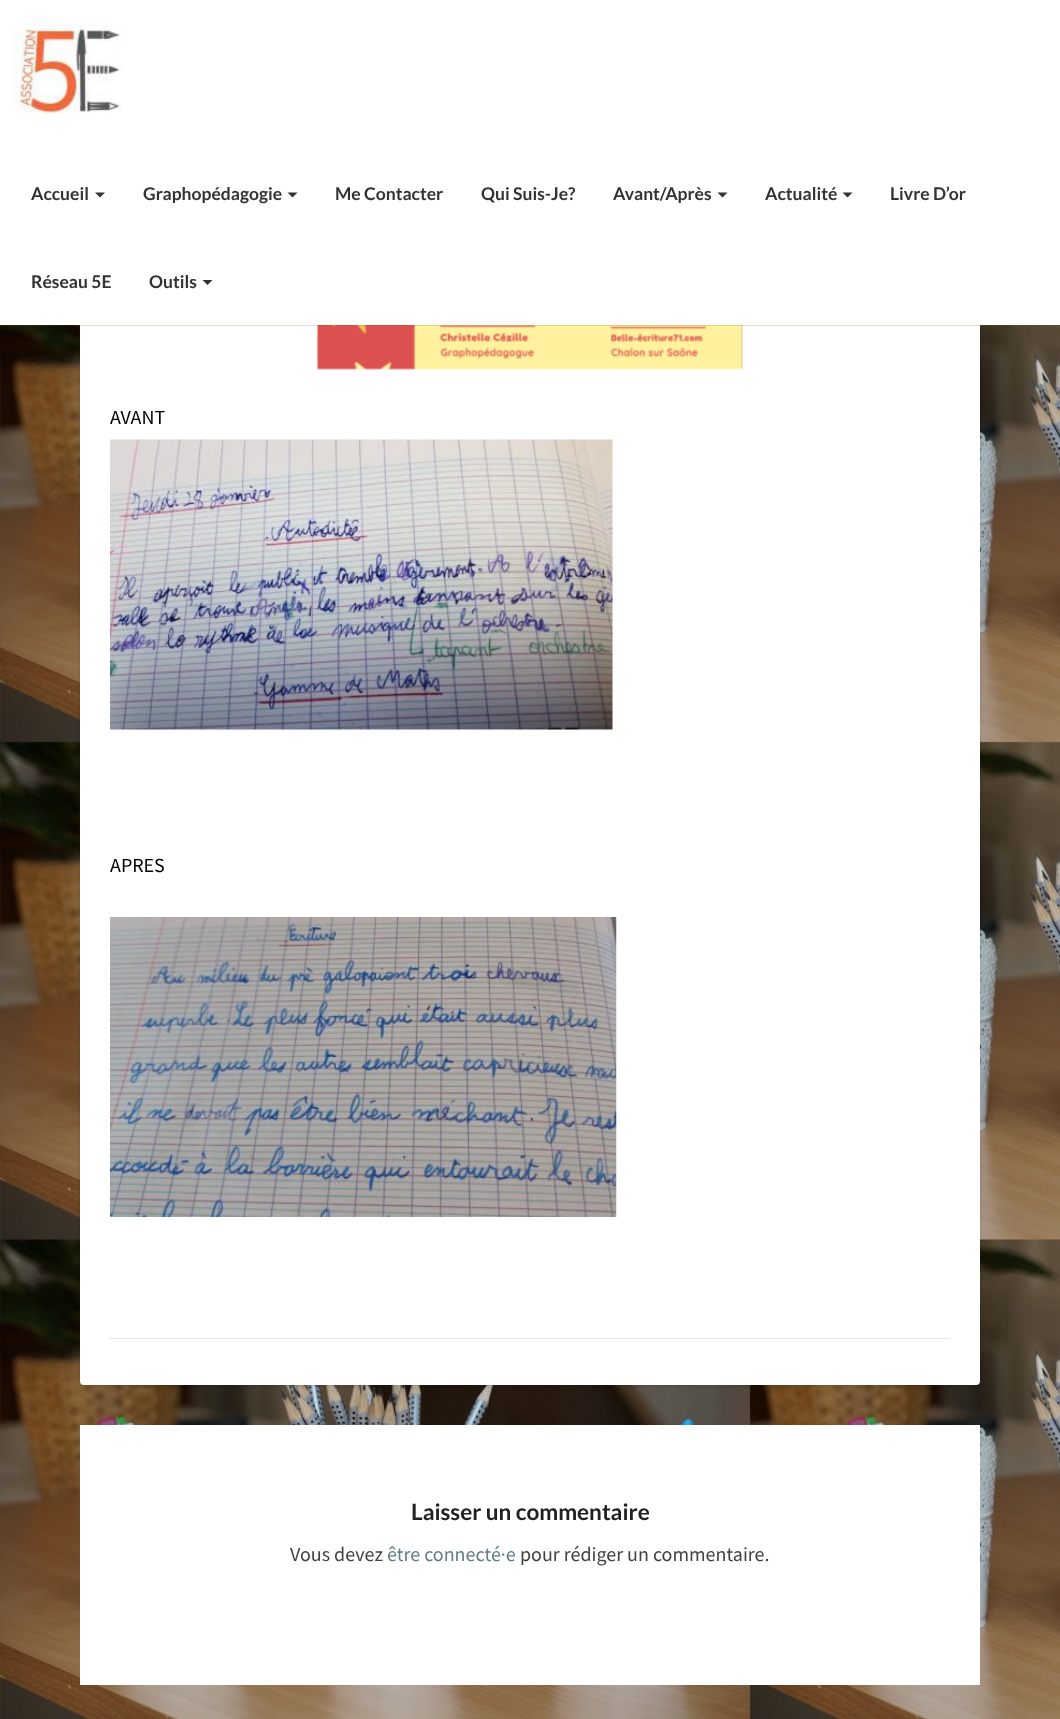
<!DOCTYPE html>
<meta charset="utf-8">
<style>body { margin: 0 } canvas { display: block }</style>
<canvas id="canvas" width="1060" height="1719"></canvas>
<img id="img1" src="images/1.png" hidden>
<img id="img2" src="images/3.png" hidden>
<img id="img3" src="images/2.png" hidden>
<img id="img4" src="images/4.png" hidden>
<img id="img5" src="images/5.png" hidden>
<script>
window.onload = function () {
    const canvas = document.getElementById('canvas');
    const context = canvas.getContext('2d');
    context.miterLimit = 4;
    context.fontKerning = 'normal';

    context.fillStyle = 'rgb(255, 255, 255)';
    context.fillRect(0, 0, 1060, 1719);
    context.drawImage(document.getElementById('img1'), 0, 325, 1060, 1394);
    context.fillStyle = 'rgba(0, 0, 0, 0.15)';
    context.filter = 'blur(2px)';
    context.beginPath();
    context.roundRect(80, -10, 900, 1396, 4);
    context.fill();
    context.filter = 'none';
    context.fillStyle = 'rgb(255, 255, 255)';
    context.beginPath();
    context.roundRect(80, -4, 900, 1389, 4);
    context.fill();
    context.drawImage(document.getElementById('img2'), 317, 325, 426, 45);
    context.fillStyle = 'rgba(100, 100, 0, 0.2)';
    context.filter = 'blur(0.5px)';
    context.beginPath();
    context.rect(0, 1, 1060, 325);
    context.fill();
    context.filter = 'none';
    context.fillStyle = 'rgb(255, 255, 255)';
    context.fillRect(0, 0, 1060, 325);
    context.drawImage(document.getElementById('img3'), 12, 15, 110, 99);
    context.fillStyle = 'rgb(51, 51, 51)';
    context.beginPath();
    context.moveTo(95, 192.5);
    context.lineTo(105, 192.5);
    context.lineTo(100, 197.5);
    context.closePath();
    context.fill();
    context.beginPath();
    context.moveTo(287.5, 192.5);
    context.lineTo(297.5, 192.5);
    context.lineTo(292.5, 197.5);
    context.closePath();
    context.fill();
    context.beginPath();
    context.moveTo(717.5, 192.5);
    context.lineTo(727.5, 192.5);
    context.lineTo(722.5, 197.5);
    context.closePath();
    context.fill();
    context.beginPath();
    context.moveTo(842.5, 192.5);
    context.lineTo(852.5, 192.5);
    context.lineTo(847.5, 197.5);
    context.closePath();
    context.fill();
    context.beginPath();
    context.moveTo(202.5, 280);
    context.lineTo(212.5, 280);
    context.lineTo(207.5, 285);
    context.closePath();
    context.fill();
    context.drawImage(document.getElementById('img4'), 110, 439, 503, 291);
    context.drawImage(document.getElementById('img5'), 110, 917, 507, 300);
    context.fillStyle = 'rgb(230, 230, 230)';
    context.fillRect(110, 1338, 840, 1);
    context.fillStyle = 'rgb(255, 255, 255)';
    context.fillRect(80, 1425, 900, 260);
    context.font = 'bold 17.5px Lato';
    context.fillStyle = 'rgb(51, 51, 51)';
    context.fillText('Accueil', 31, 200);
    context.fillText('Graphopédagogie', 143, 200);
    context.fillText('Me Contacter', 335, 200);
    context.fillText('Qui Suis-Je?', 481, 200);
    context.fillText('Avant/Après', 613, 200);
    context.fillText('Actualité', 765, 200);
    context.fillText('Livre D’or', 890, 200);
    context.fillText('Réseau 5E', 31, 288);
    context.fillText('Outils', 149, 288);
    context.font = '20px Source Sans Pro';
    context.fillStyle = 'rgb(0, 0, 0)';
    context.fillText('AVANT', 110, 424);
    context.fillText('APRES', 110, 872);
    context.font = 'bold 22.5px Lato';
    context.fillStyle = 'rgb(33, 33, 33)';
    context.fillText('Laisser un commentaire', 411, 1520);
    context.font = '20px Source Sans Pro';
    context.fillStyle = 'rgb(66, 66, 66)';
    context.fillText('Vous devez', 290, 1561);
    context.fillStyle = 'rgb(96, 125, 139)';
    context.fillText('être connecté·e', 387, 1561);
    context.fillStyle = 'rgb(66, 66, 66)';
    context.fillText('pour rédiger un commentaire.', 520, 1561);
};
</script>
